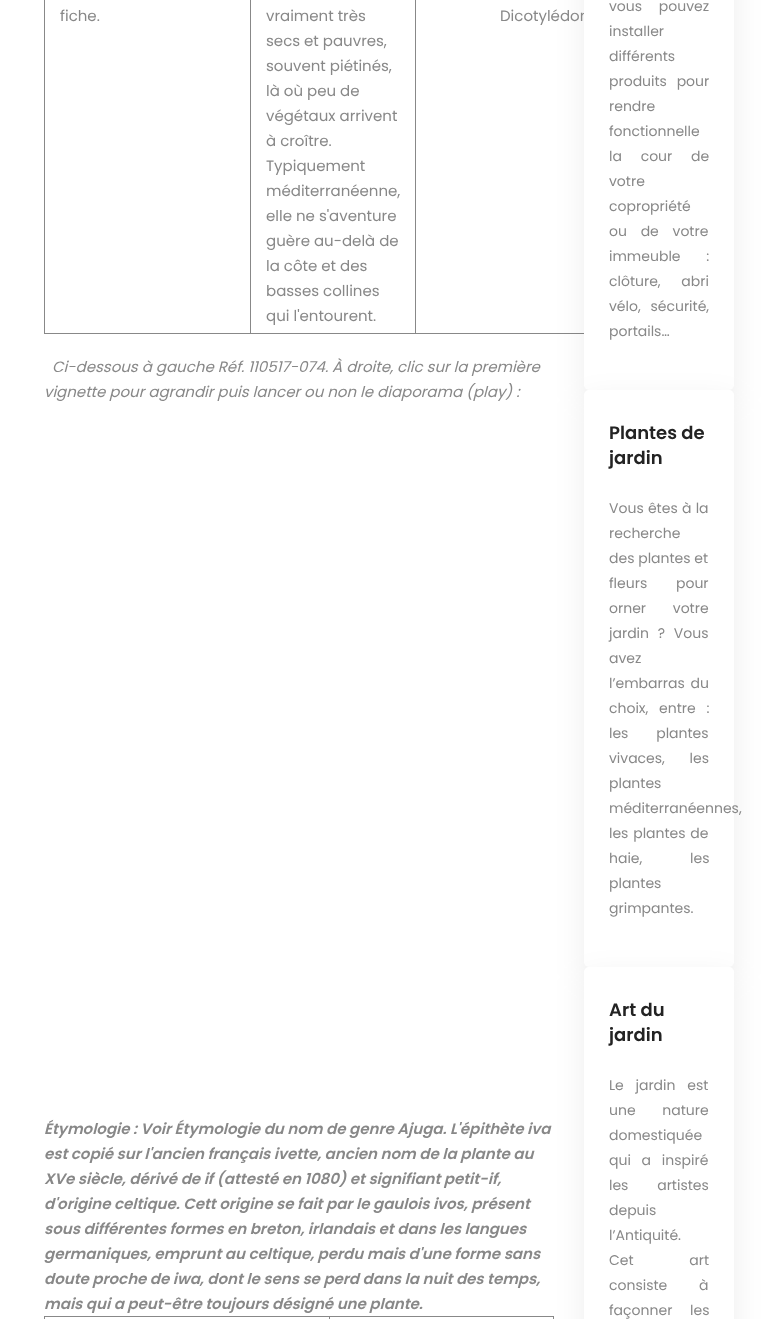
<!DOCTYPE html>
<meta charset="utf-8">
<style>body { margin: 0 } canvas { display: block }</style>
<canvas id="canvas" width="778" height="1319"></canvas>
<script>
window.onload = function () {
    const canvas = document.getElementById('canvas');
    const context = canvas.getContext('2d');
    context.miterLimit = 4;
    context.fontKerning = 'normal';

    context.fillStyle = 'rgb(255, 255, 255)';
    context.fillRect(0, 0, 778, 1319);
    context.fillStyle = 'rgb(136, 136, 136)';
    context.fillRect(44, 333, 540, 1);
    context.fillRect(44, 0, 1, 334);
    context.fillRect(250, 0, 1, 334);
    context.fillRect(415, 0, 1, 334);
    context.fillRect(44, 1316, 510, 1);
    context.fillRect(553, 1316, 1, 3);
    context.fillRect(44, 1316, 1, 3);
    context.fillRect(329, 1316, 1, 3);
    context.fillStyle = 'rgba(0, 0, 0, 0.07)';
    context.filter = 'blur(15px)';
    context.beginPath();
    context.roundRect(584, -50, 150, 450, 5);
    context.fill();
    context.filter = 'none';
    context.font = '15px Poppins';
    context.fillStyle = 'rgb(136, 136, 136)';
    context.fillText('fiche.', 60, 21);
    context.fillText('vraiment très', 266, 21);
    context.fillText('secs et pauvres,', 266, 46);
    context.fillText('souvent piétinés,', 266, 71);
    context.fillText('là où peu de', 266, 96);
    context.fillText('végétaux arrivent', 266, 121);
    context.fillText('à croître.', 266, 146);
    context.fillText('Typiquement', 266, 171);
    context.fillText('méditerranéenne,', 266, 196);
    context.fillText('elle ne s\'aventure', 266, 221);
    context.fillText('guère au-delà de', 266, 246);
    context.fillText('la côte et des', 266, 271);
    context.fillText('basses collines', 266, 296);
    context.fillText('qui l\'entourent.', 266, 321);
    context.fillText('Dicotylédon', 500, 21);
    context.font = 'italic 15px Poppins';
    context.fillText('Ci-dessous à gauche Réf. 110517-074. À droite, clic sur la première', 52, 372);
    context.fillText('vignette pour agrandir puis lancer ou non le diaporama (play) :', 44, 397);
    context.font = 'italic 600 15px Poppins';
    context.fillText('Étymologie : Voir Étymologie du nom de genre Ajuga. L\'épithète iva', 44, 1134);
    context.fillText('est copié sur l\'ancien français ivette, ancien nom de la plante au', 44, 1159);
    context.fillText('XVe siècle, dérivé de if (attesté en 1080) et signifiant petit-if,', 44, 1184);
    context.fillText('d\'origine celtique. Cett origine se fait par le gaulois ivos, présent', 44, 1209);
    context.fillText('sous différentes formes en breton, irlandais et dans les langues', 44, 1234);
    context.fillText('germaniques, emprunt au celtique, perdu mais d\'une forme sans', 44, 1259);
    context.fillText('doute proche de iwa, dont le sens se perd dans la nuit des temps,', 44, 1284);
    context.fillText('mais qui a peut-être toujours désigné une plante.', 44, 1309);
    context.fillStyle = 'rgb(255, 255, 255)';
    context.beginPath();
    context.roundRect(584, -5, 150, 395, 5);
    context.fill();
    context.wordSpacing = '13px';
    context.font = '14px Poppins';
    context.fillStyle = 'rgb(136, 136, 136)';
    context.fillText('vous pouvez', 609, 11);
    context.wordSpacing = '0px';
    context.fillText('installer', 609, 36);
    context.fillText('différents', 609, 61);
    context.wordSpacing = '6px';
    context.fillText('produits pour', 609, 86);
    context.wordSpacing = '0px';
    context.fillText('rendre', 609, 111);
    context.fillText('fonctionnelle', 609, 136);
    context.wordSpacing = '15px';
    context.fillText('la cour de', 609, 161);
    context.wordSpacing = '0px';
    context.fillText('votre', 609, 186);
    context.fillText('copropriété', 609, 211);
    context.wordSpacing = '10px';
    context.fillText('ou de votre', 609, 236);
    context.wordSpacing = '22px';
    context.fillText('immeuble :', 609, 261);
    context.wordSpacing = '17px';
    context.fillText('clôture, abri', 609, 286);
    context.wordSpacing = '6px';
    context.fillText('vélo, sécurité,', 609, 311);
    context.wordSpacing = '0px';
    context.fillText('portails…', 609, 336);
    context.fillStyle = 'rgba(0, 0, 0, 0.07)';
    context.filter = 'blur(15px)';
    context.beginPath();
    context.roundRect(584, 400, 150, 577, 5);
    context.fill();
    context.filter = 'none';
    context.fillStyle = 'rgb(255, 255, 255)';
    context.beginPath();
    context.roundRect(584, 390, 150, 577, 5);
    context.fill();
    context.font = '600 18px Poppins';
    context.fillStyle = 'rgb(35, 35, 35)';
    context.fillText('Plantes de', 609, 439);
    context.fillText('jardin', 609, 464);
    context.wordSpacing = '0.5px';
    context.font = '14px Poppins';
    context.fillStyle = 'rgb(136, 136, 136)';
    context.fillText('Vous êtes à la', 609, 513);
    context.wordSpacing = '0px';
    context.fillText('recherche', 609, 538);
    context.fillText('des plantes et', 609, 563);
    context.wordSpacing = '25px';
    context.fillText('fleurs pour', 609, 588);
    context.wordSpacing = '23px';
    context.fillText('orner votre', 609, 613);
    context.wordSpacing = '5px';
    context.fillText('jardin ? Vous', 609, 638);
    context.wordSpacing = '0px';
    context.fillText('avez', 609, 663);
    context.wordSpacing = '2px';
    context.fillText('l’embarras du', 609, 688);
    context.wordSpacing = '7px';
    context.fillText('choix, entre :', 609, 713);
    context.wordSpacing = '24px';
    context.fillText('les plantes', 609, 738);
    context.wordSpacing = '21px';
    context.fillText('vivaces, les', 609, 763);
    context.wordSpacing = '0px';
    context.fillText('plantes', 609, 788);
    context.fillText('méditerranéennes,', 609, 813);
    context.wordSpacing = '1px';
    context.fillText('les plantes de', 609, 838);
    context.wordSpacing = '44px';
    context.fillText('haie, les', 609, 863);
    context.wordSpacing = '0px';
    context.fillText('plantes', 609, 888);
    context.fillText('grimpantes.', 609, 913);
    context.fillStyle = 'rgba(0, 0, 0, 0.07)';
    context.filter = 'blur(15px)';
    context.beginPath();
    context.roundRect(584, 977, 150, 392, 5);
    context.fill();
    context.filter = 'none';
    context.fillStyle = 'rgb(255, 255, 255)';
    context.beginPath();
    context.roundRect(584, 967, 150, 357, 5);
    context.fill();
    context.font = '600 18px Poppins';
    context.fillStyle = 'rgb(35, 35, 35)';
    context.fillText('Art du', 609, 1016);
    context.fillText('jardin', 609, 1041);
    context.wordSpacing = '8px';
    context.font = '14px Poppins';
    context.fillStyle = 'rgb(136, 136, 136)';
    context.fillText('Le jardin est', 609, 1090);
    context.wordSpacing = '23px';
    context.fillText('une nature', 609, 1115);
    context.wordSpacing = '0px';
    context.fillText('domestiquée', 609, 1140);
    context.wordSpacing = '7px';
    context.fillText('qui a inspiré', 609, 1165);
    context.wordSpacing = '25px';
    context.fillText('les artistes', 609, 1190);
    context.wordSpacing = '0px';
    context.fillText('depuis', 609, 1215);
    context.fillText('l’Antiquité.', 609, 1240);
    context.wordSpacing = '52px';
    context.fillText('Cet art', 609, 1265);
    context.wordSpacing = '28px';
    context.fillText('consiste à', 609, 1290);
    context.wordSpacing = '14px';
    context.fillText('façonner les', 609, 1315);
};
</script>
